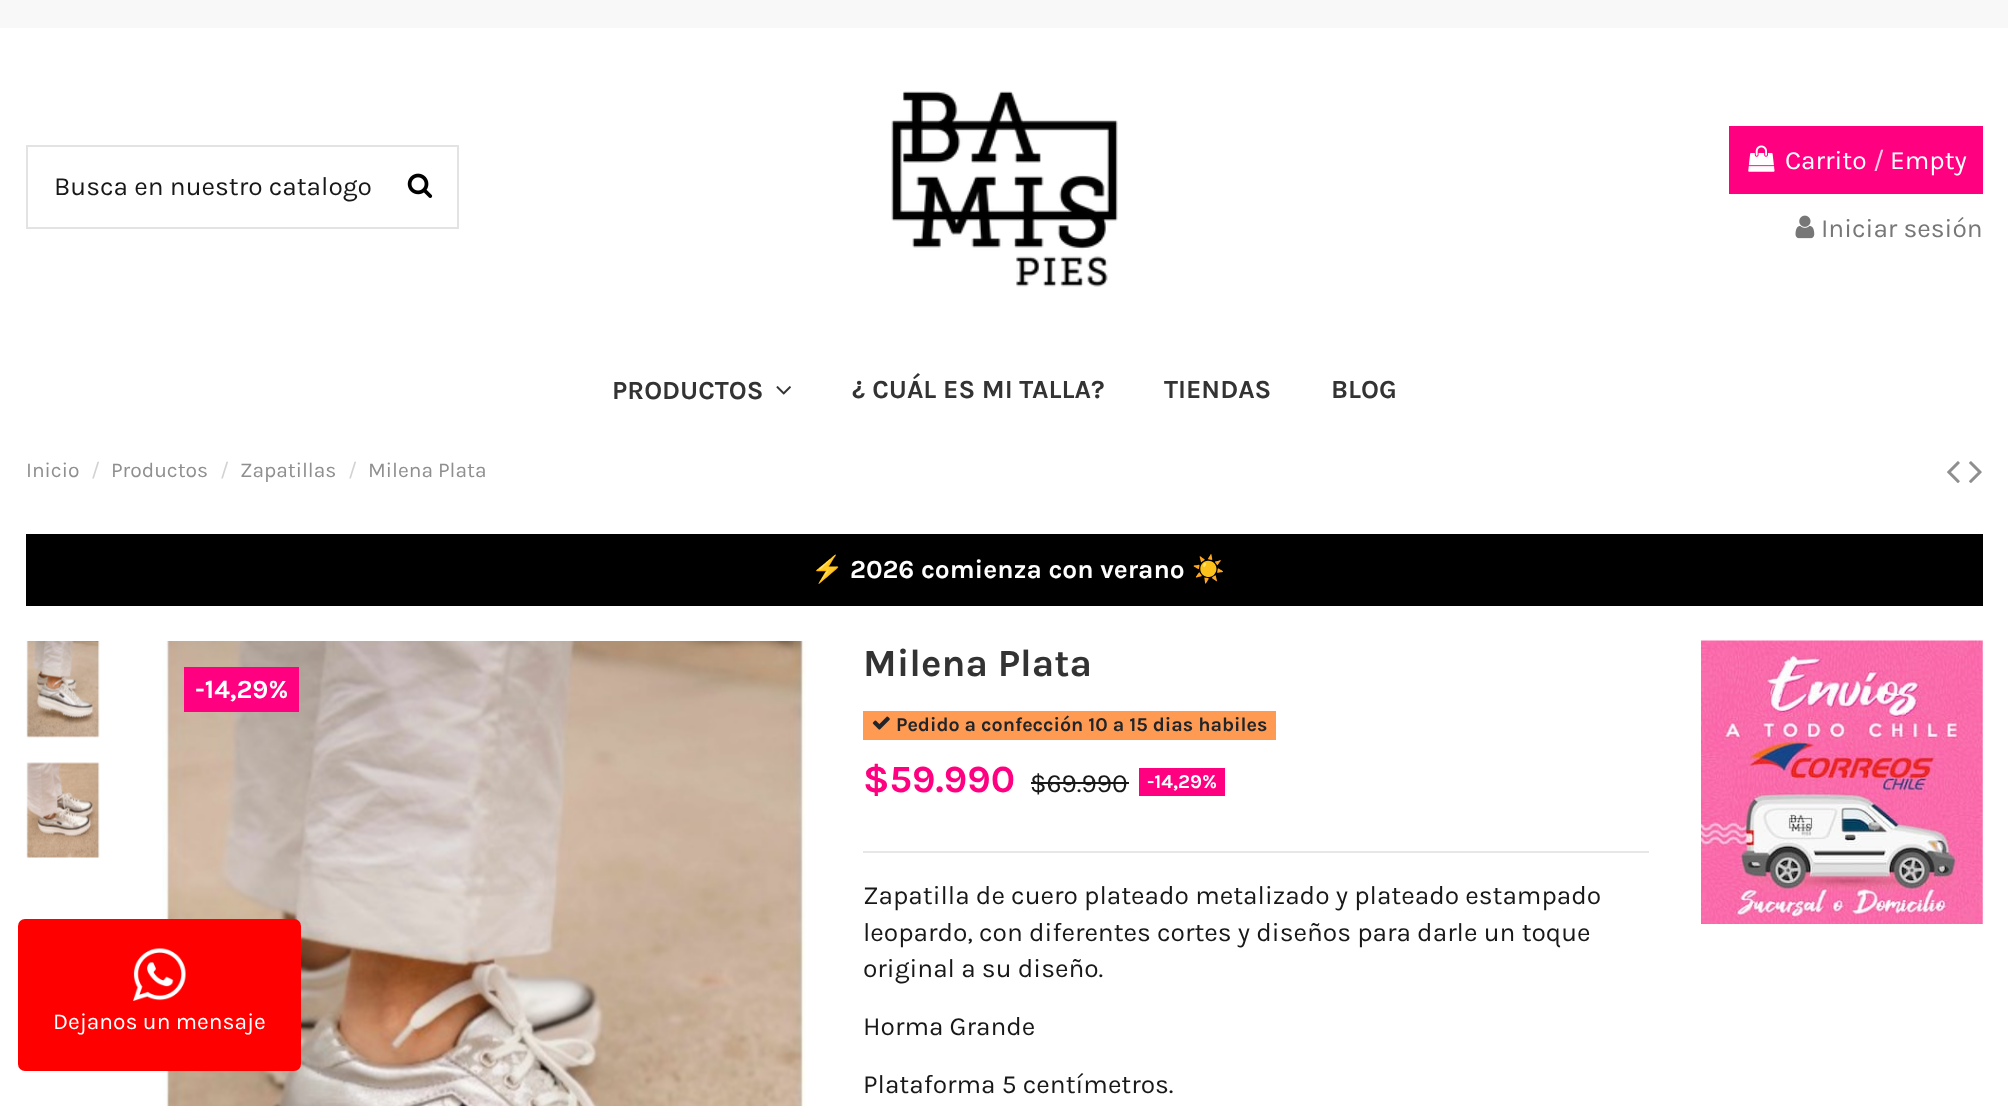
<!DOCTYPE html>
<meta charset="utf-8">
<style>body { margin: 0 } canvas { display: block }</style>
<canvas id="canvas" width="2008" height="1106"></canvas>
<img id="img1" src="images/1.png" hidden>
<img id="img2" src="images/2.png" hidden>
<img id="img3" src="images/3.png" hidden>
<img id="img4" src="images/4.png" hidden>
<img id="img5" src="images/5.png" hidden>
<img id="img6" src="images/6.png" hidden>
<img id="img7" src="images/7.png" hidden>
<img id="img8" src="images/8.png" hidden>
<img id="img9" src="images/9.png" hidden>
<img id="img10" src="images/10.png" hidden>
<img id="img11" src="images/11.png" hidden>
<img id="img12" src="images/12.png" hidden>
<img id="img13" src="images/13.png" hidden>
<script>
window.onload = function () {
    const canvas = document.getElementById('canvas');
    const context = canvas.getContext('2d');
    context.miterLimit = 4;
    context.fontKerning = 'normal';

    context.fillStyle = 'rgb(255, 255, 255)';
    context.fillRect(0, 0, 2008, 1106);
    context.fillStyle = 'rgb(248, 248, 248)';
    context.fillRect(0, 0, 2008, 28);
    context.strokeStyle = 'rgb(227, 227, 227)';
    context.lineWidth = 2;
    context.strokeRect(27, 146, 431, 82);
    context.drawImage(document.getElementById('img1'), 407, 173, 26, 25);
    context.drawImage(document.getElementById('img2'), 891, 91, 227, 196);
    context.fillStyle = 'rgb(255, 0, 128)';
    context.fillRect(1729, 126, 254, 68);
    context.drawImage(document.getElementById('img3'), 1748, 145, 27, 27);
    context.drawImage(document.getElementById('img4'), 1795, 215, 20, 24);
    context.drawImage(document.getElementById('img5'), 776, 386, 15, 9);
    context.drawImage(document.getElementById('img6'), 1947, 461, 13, 22);
    context.drawImage(document.getElementById('img7'), 1969, 461, 13, 22);
    context.fillStyle = 'rgb(0, 0, 0)';
    context.fillRect(26, 534, 1957, 72);
    context.drawImage(document.getElementById('img8'), 26, 641, 74, 97);
    context.drawImage(document.getElementById('img9'), 26, 762, 74, 96);
    context.drawImage(document.getElementById('img10'), 162, 641, 644, 465);
    context.fillStyle = 'rgb(255, 0, 128)';
    context.fillRect(184, 667, 115, 45);
    context.fillStyle = 'rgb(231, 231, 231)';
    context.fillRect(863, 851, 786, 2);
    context.fillStyle = 'rgb(255, 154, 82)';
    context.fillRect(863, 711, 413, 29);
    context.drawImage(document.getElementById('img11'), 872, 716, 18, 14);
    context.fillStyle = 'rgb(25, 24, 24)';
    context.fillRect(1031, 782, 98, 2);
    context.fillStyle = 'rgb(255, 0, 128)';
    context.fillRect(1139, 768, 86, 28);
    context.drawImage(document.getElementById('img12'), 1701, 640, 282, 284);
    context.fillStyle = 'rgb(255, 0, 0)';
    context.beginPath();
    context.roundRect(18, 919, 283, 152, 7);
    context.fill();
    context.drawImage(document.getElementById('img13'), 133, 948, 53, 53);
    context.font = '26.25px Karla';
    context.fillStyle = 'rgb(25, 24, 24)';
    context.fillText('Busca en nuestro catalogo', 54, 195);
    context.fillStyle = 'rgb(255, 255, 255)';
    context.fillText('Carrito', 1785, 169);
    context.fillStyle = 'rgb(255, 204, 230)';
    context.fillText('/', 1873, 169);
    context.fillStyle = 'rgb(255, 255, 255)';
    context.fillText('Empty', 1890, 169);
    context.fillStyle = 'rgb(119, 119, 119)';
    context.fillText('Iniciar sesión', 1821, 237);
    context.font = 'bold 26.25px Karla';
    context.fillStyle = 'rgb(51, 51, 51)';
    context.fillText('PRODUCTOS', 612, 399);
    context.fillText('¿ CUÁL ES MI TALLA?', 852, 398);
    context.fillText('TIENDAS', 1164, 398);
    context.fillText('BLOG', 1331, 398);
    context.font = '21px Karla';
    context.fillStyle = 'rgb(143, 143, 143)';
    context.fillText('Inicio', 26, 477);
    context.fillStyle = 'rgb(210, 210, 210)';
    context.fillText('/', 91, 477);
    context.fillStyle = 'rgb(143, 143, 143)';
    context.fillText('Productos', 111, 477);
    context.fillStyle = 'rgb(210, 210, 210)';
    context.fillText('/', 220, 477);
    context.fillStyle = 'rgb(143, 143, 143)';
    context.fillText('Zapatillas', 240, 477);
    context.fillStyle = 'rgb(210, 210, 210)';
    context.fillText('/', 348, 477);
    context.fillStyle = 'rgb(143, 143, 143)';
    context.fillText('Milena Plata', 368, 477);
    context.font = 'bold 26.25px Noto Color Emoji';
    context.fillStyle = 'rgb(255, 255, 255)';
    context.fillText('⚡', 811, 578);
    context.font = 'bold 26.25px Karla';
    context.fillText('2026 comienza con verano', 850, 578);
    context.font = 'bold 26.25px Noto Color Emoji';
    context.fillText('☀️', 1192, 578);
    context.font = 'bold 26.25px Karla';
    context.fillText('-14,29%', 195, 698);
    context.font = 'bold 38.5px Karla';
    context.fillStyle = 'rgb(51, 51, 51)';
    context.fillText('Milena Plata', 863, 676);
    context.font = 'bold 19.7px Karla';
    context.fillStyle = 'rgb(33, 37, 41)';
    context.fillText('Pedido a confección 10 a 15 dias habiles', 896, 731);
    context.font = 'bold 38.5px Karla';
    context.fillStyle = 'rgb(255, 0, 128)';
    context.fillText('$59.990', 863, 792);
    context.font = '26.25px Karla';
    context.fillStyle = 'rgb(25, 24, 24)';
    context.fillText('$69.990', 1030, 792);
    context.font = 'bold 19.7px Karla';
    context.fillStyle = 'rgb(255, 255, 255)';
    context.fillText('-14,29%', 1147, 788);
    context.font = '26.25px Karla';
    context.fillStyle = 'rgb(25, 24, 24)';
    context.fillText('Zapatilla de cuero plateado metalizado y plateado estampado', 863, 904);
    context.fillText('leopardo, con diferentes cortes y diseños para darle un toque', 863, 941);
    context.fillText('original a su diseño.', 863, 977);
    context.fillText('Horma Grande', 863, 1035);
    context.fillText('Plataforma 5 centímetros.', 863, 1093);
    context.font = '22.75px Karla';
    context.fillStyle = 'rgb(255, 255, 255)';
    context.fillText('Dejanos un mensaje', 53, 1029);
};
</script>
